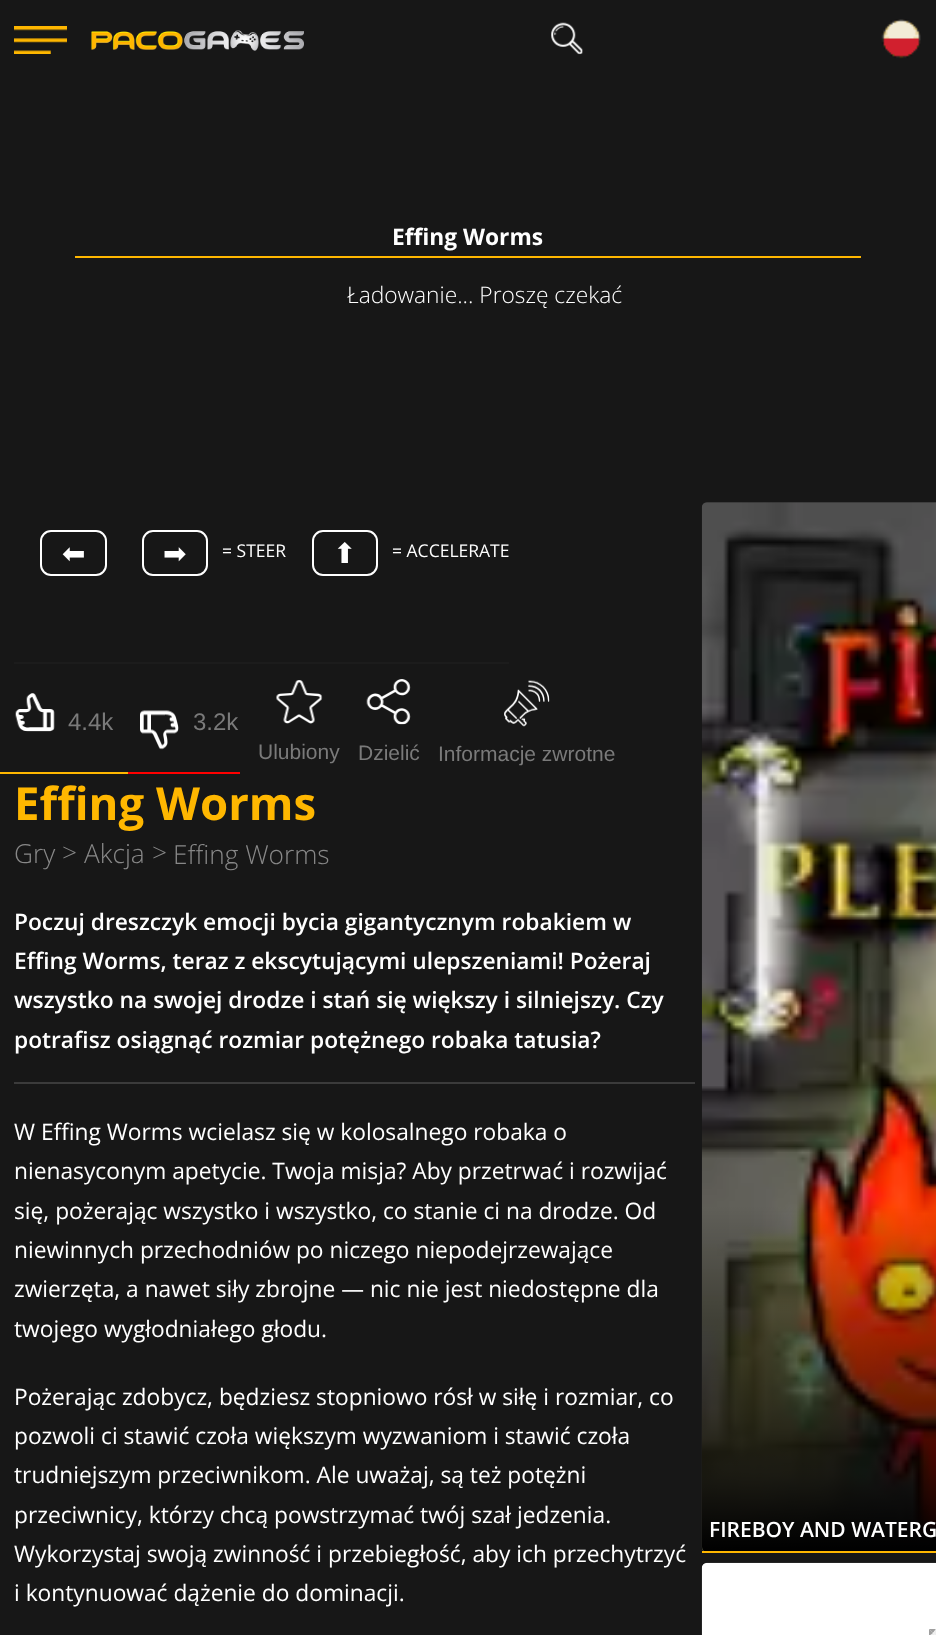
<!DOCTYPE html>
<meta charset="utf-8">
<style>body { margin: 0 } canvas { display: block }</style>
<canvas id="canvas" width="936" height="1635"></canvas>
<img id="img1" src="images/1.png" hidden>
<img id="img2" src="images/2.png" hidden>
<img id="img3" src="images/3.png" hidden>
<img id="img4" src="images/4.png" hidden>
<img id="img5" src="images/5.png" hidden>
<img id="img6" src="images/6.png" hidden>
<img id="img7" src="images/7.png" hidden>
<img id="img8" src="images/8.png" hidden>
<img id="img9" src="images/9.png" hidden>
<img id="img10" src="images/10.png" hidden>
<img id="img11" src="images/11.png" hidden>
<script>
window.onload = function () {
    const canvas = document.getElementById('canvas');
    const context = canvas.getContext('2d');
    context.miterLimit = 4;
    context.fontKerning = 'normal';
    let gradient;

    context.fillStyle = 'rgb(23, 23, 23)';
    context.fillRect(0, 0, 936, 1635);
    context.drawImage(document.getElementById('img1'), 14, 26, 53, 28);
    context.drawImage(document.getElementById('img2'), 91, 30, 213, 21);
    context.drawImage(document.getElementById('img3'), 551, 22, 32, 33);
    context.drawImage(document.getElementById('img4'), 881, 19, 40, 40);
    context.fillStyle = 'rgb(255, 183, 0)';
    context.fillRect(75, 256, 786, 2);
    context.fillStyle = 'rgb(28, 28, 28)';
    context.fillRect(14, 662, 495, 2);
    context.beginPath();
    context.roundRect(41, 531, 65, 44, 10);
    context.strokeStyle = 'rgb(255, 255, 255)';
    context.lineWidth = 2;
    context.stroke();
    context.beginPath();
    context.roundRect(143, 531, 64, 44, 10);
    context.stroke();
    context.beginPath();
    context.roundRect(313, 531, 64, 44, 10);
    context.stroke();
    context.drawImage(document.getElementById('img5'), 15, 693, 40, 39);
    context.drawImage(document.getElementById('img6'), 140, 710, 39, 40);
    context.fillStyle = 'rgb(255, 183, 0)';
    context.fillRect(0, 772, 128, 2);
    context.fillStyle = 'rgb(255, 0, 0)';
    context.fillRect(128, 772, 112, 2);
    context.drawImage(document.getElementById('img7'), 276, 680, 47, 44);
    context.drawImage(document.getElementById('img8'), 366, 679, 45, 46);
    context.drawImage(document.getElementById('img9'), 504, 680, 46, 47);
    context.fillStyle = 'rgb(59, 59, 59)';
    context.fillRect(14, 1082, 681, 2);
    context.fillStyle = 'rgb(39, 39, 39)';
    context.beginPath();
    context.roundRect(702, 502, 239, 1050, 5);
    context.fill();
    context.drawImage(document.getElementById('img10'), 701, 502, 235, 1049);
    gradient = context.createLinearGradient(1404, 502, 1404, 1552);
    gradient.addColorStop(0.67, 'rgba(0, 0, 0, 0)');
    gradient.addColorStop(1, 'rgb(0, 0, 0)');
    context.fillStyle = gradient;
    context.beginPath();
    context.roundRect(702, 502, 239, 1050, 5);
    context.fill();
    context.fillStyle = 'rgb(255, 183, 0)';
    context.fillRect(702, 1551, 234, 2);
    context.drawImage(document.getElementById('img11'), 701, 1562, 235, 73);
    context.fillStyle = 'rgb(159, 159, 159)';
    context.beginPath();
    context.moveTo(929, 1629);
    context.lineTo(936, 1629);
    context.lineTo(933, 1633);
    context.closePath();
    context.fill();
    context.fillStyle = 'rgb(238, 238, 238)';
    context.beginPath();
    context.moveTo(936, 1629);
    context.lineTo(936, 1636);
    context.lineTo(933, 1633);
    context.closePath();
    context.fill();
    context.beginPath();
    context.moveTo(936, 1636);
    context.lineTo(929, 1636);
    context.lineTo(933, 1633);
    context.closePath();
    context.fill();
    context.fillStyle = 'rgb(159, 159, 159)';
    context.beginPath();
    context.moveTo(929, 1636);
    context.lineTo(929, 1629);
    context.lineTo(933, 1633);
    context.closePath();
    context.fill();
    context.font = 'bold 22.75px Open Sans';
    context.fillStyle = 'rgb(255, 255, 255)';
    context.fillText('Effing Worms', 392, 245);
    context.font = '300 22.75px Open Sans';
    context.fillText('Ładowanie... Proszę czekać', 347, 303);
    context.font = '28px DejaVu Sans';
    context.fillText('⬅', 62, 563);
    context.fillText('➡', 163, 563);
    context.font = '17.5px Open Sans';
    context.fillText('= STEER', 222, 557);
    context.font = '28px DejaVu Sans';
    context.fillText('⬆', 333, 563);
    context.font = '17.5px Open Sans';
    context.fillText('= ACCELERATE', 392, 557);
    context.font = '24px Liberation Sans';
    context.fillStyle = 'rgb(122, 122, 122)';
    context.fillText('4.4k', 68, 730);
    context.fillText('3.2k', 193, 730);
    context.font = '21px Liberation Sans';
    context.fillText('Ulubiony', 258, 759);
    context.fillText('Dzielić', 358, 760);
    context.fillText('Informacje zwrotne', 438, 761);
    context.font = 'bold 45.5px Open Sans';
    context.fillStyle = 'rgb(255, 183, 0)';
    context.fillText('Effing Worms', 14, 820);
    context.font = '300 26.25px Open Sans';
    context.fillStyle = 'rgb(136, 136, 136)';
    context.fillText('Gry', 14, 863);
    context.fillText('>', 62, 862);
    context.fillText('Akcja', 84, 863);
    context.fillText('>', 152, 862);
    context.fillText('Effing Worms', 173, 864);
    context.font = '600 22.75px Open Sans';
    context.fillStyle = 'rgb(255, 255, 255)';
    context.fillText('Poczuj dreszczyk emocji bycia gigantycznym robakiem w', 14, 930);
    context.fillText('Effing Worms, teraz z ekscytującymi ulepszeniami! Pożeraj', 14, 969);
    context.fillText('wszystko na swojej drodze i stań się większy i silniejszy. Czy', 14, 1008);
    context.fillText('potrafisz osiągnąć rozmiar potężnego robaka tatusia?', 14, 1048);
    context.font = '22.75px Open Sans';
    context.fillText('W Effing Worms wcielasz się w kolosalnego robaka o', 14, 1140);
    context.fillText('nienasyconym apetycie. Twoja misja? Aby przetrwać i rozwijać', 14, 1179);
    context.fillText('się, pożerając wszystko i wszystko, co stanie ci na drodze. Od', 14, 1219);
    context.fillText('niewinnych przechodniów po niczego niepodejrzewające', 14, 1258);
    context.fillText('zwierzęta, a nawet siły zbrojne — nic nie jest niedostępne dla', 14, 1297);
    context.fillText('twojego wygłodniałego głodu.', 14, 1337);
    context.fillText('Pożerając zdobycz, będziesz stopniowo rósł w siłę i rozmiar, co', 14, 1405);
    context.fillText('pozwoli ci stawić czoła większym wyzwaniom i stawić czoła', 14, 1444);
    context.fillText('trudniejszym przeciwnikom. Ale uważaj, są też potężni', 14, 1483);
    context.fillText('przeciwnicy, którzy chcą powstrzymać twój szał jedzenia.', 14, 1523);
    context.fillText('Wykorzystaj swoją zwinność i przebiegłość, aby ich przechytrzyć', 14, 1562);
    context.fillText('i kontynuować dążenie do dominacji.', 14, 1601);
    context.font = '600 21px Open Sans';
    context.fillText('FIREBOY AND WATERG', 709, 1537);
};
</script>
